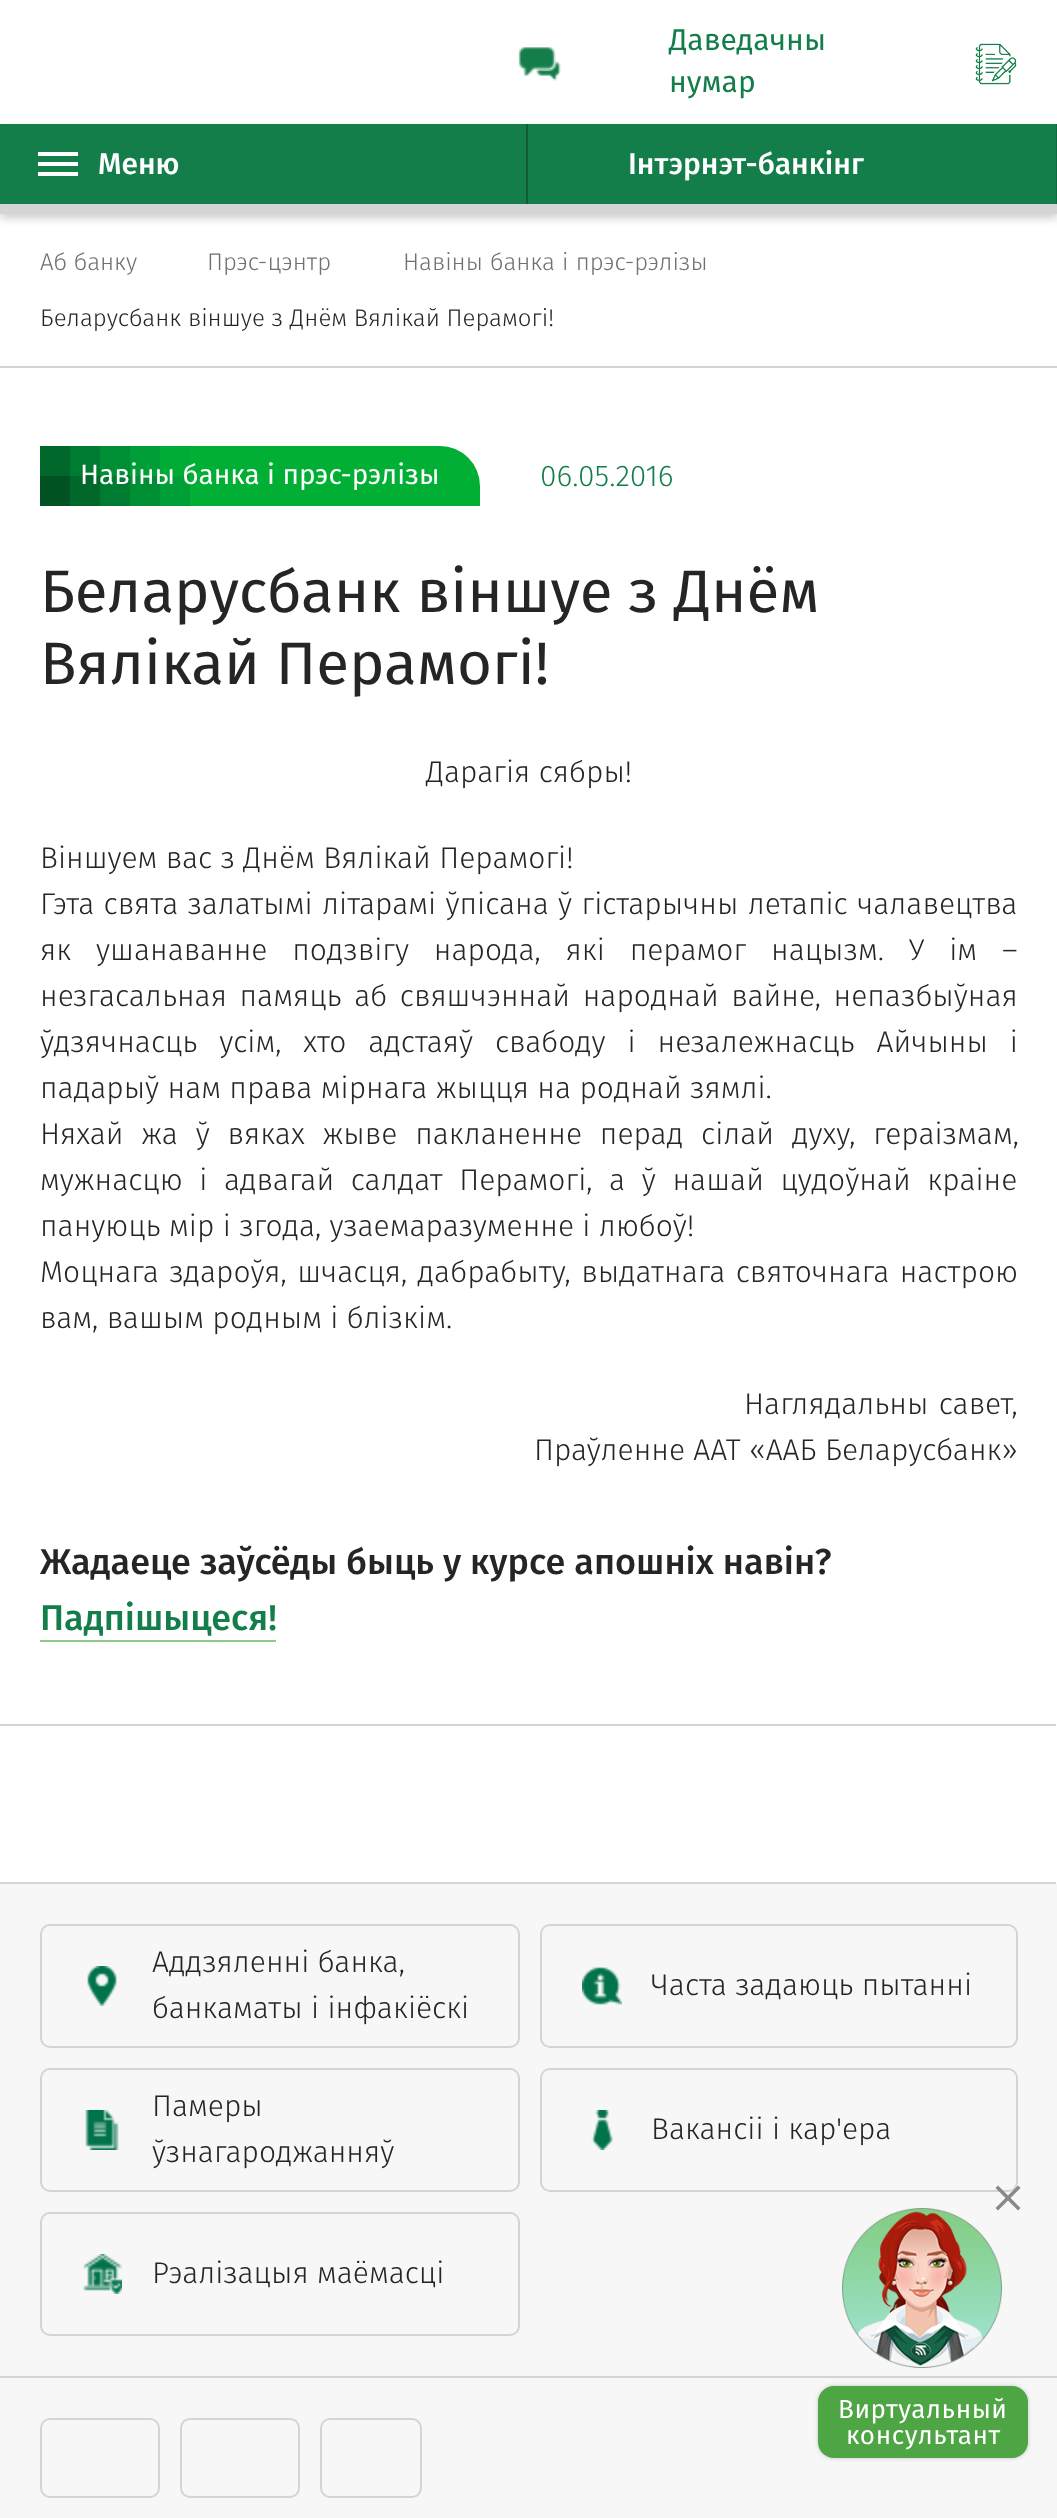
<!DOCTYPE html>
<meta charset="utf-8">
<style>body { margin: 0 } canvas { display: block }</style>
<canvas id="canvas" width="1057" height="2518"></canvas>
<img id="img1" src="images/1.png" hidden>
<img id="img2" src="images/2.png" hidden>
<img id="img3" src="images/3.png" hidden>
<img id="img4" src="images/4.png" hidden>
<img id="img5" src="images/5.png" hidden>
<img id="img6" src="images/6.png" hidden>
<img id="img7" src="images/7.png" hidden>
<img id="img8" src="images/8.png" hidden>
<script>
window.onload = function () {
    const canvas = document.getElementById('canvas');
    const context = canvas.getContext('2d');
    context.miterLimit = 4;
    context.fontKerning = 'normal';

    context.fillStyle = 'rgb(255, 255, 255)';
    context.fillRect(0, 0, 1057, 2518);
    context.drawImage(document.getElementById('img1'), 518, 47, 43, 34);
    context.drawImage(document.getElementById('img2'), 975, 43, 42, 42);
    context.fillStyle = 'rgba(0, 0, 0, 0.2)';
    context.filter = 'blur(5px)';
    context.beginPath();
    context.rect(0, 128, 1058, 90);
    context.fill();
    context.filter = 'none';
    context.fillStyle = 'rgb(20, 126, 75)';
    context.fillRect(0, 124, 1056, 80);
    context.fillStyle = 'rgb(14, 91, 54)';
    context.fillRect(526, 124, 2, 82);
    context.fillStyle = 'rgb(255, 255, 255)';
    context.fillRect(38, 152, 40, 4);
    context.fillRect(38, 162, 40, 4);
    context.fillRect(38, 172, 40, 4);
    context.fillStyle = 'rgb(17, 107, 64)';
    context.fillRect(1056, 124, 1, 82);
    context.fillStyle = 'rgb(212, 212, 212)';
    context.fillRect(0, 204, 1057, 10);
    context.fillRect(0, 366, 1057, 2);
    context.fillStyle = 'rgb(0, 175, 51)';
    context.beginPath();
    context.roundRect(40, 446, 440, 60, [0, 40, 0, 0]);
    context.fill();
    context.fillStyle = 'rgb(0, 104, 43)';
    context.fillRect(40, 446, 30, 30);
    context.fillStyle = 'rgb(0, 123, 50)';
    context.fillRect(70, 446, 30, 30);
    context.fillStyle = 'rgb(0, 142, 52)';
    context.fillRect(100, 446, 30, 30);
    context.fillStyle = 'rgb(0, 158, 55)';
    context.fillRect(130, 446, 30, 30);
    context.fillStyle = 'rgb(0, 172, 54)';
    context.fillRect(160, 446, 30, 30);
    context.fillStyle = 'rgb(1, 83, 35)';
    context.fillRect(40, 476, 30, 30);
    context.fillStyle = 'rgb(0, 104, 43)';
    context.fillRect(70, 476, 30, 30);
    context.fillStyle = 'rgb(0, 123, 50)';
    context.fillRect(100, 476, 30, 30);
    context.fillStyle = 'rgb(0, 142, 52)';
    context.fillRect(130, 476, 30, 30);
    context.fillStyle = 'rgb(0, 158, 55)';
    context.fillRect(160, 476, 30, 30);
    context.fillStyle = 'rgb(143, 202, 139)';
    context.fillRect(40, 1640, 236, 2);
    context.fillStyle = 'rgb(212, 212, 212)';
    context.fillRect(0, 1724, 1057, 2);
    context.fillRect(0, 1882, 1057, 2);
    context.fillStyle = 'rgb(255, 255, 255)';
    context.fillRect(1056, 1724, 1, 160);
    context.fillStyle = 'rgb(247, 247, 247)';
    context.fillRect(0, 1884, 1057, 492);
    context.beginPath();
    context.roundRect(41, 1925, 478, 122, 9);
    context.strokeStyle = 'rgb(212, 212, 212)';
    context.lineWidth = 2;
    context.stroke();
    context.drawImage(document.getElementById('img3'), 87, 1966, 30, 40);
    context.beginPath();
    context.roundRect(541, 1925, 476, 122, 9);
    context.stroke();
    context.drawImage(document.getElementById('img4'), 582, 1966, 40, 39);
    context.beginPath();
    context.roundRect(41, 2069, 478, 122, 9);
    context.stroke();
    context.drawImage(document.getElementById('img5'), 85, 2110, 34, 40);
    context.beginPath();
    context.roundRect(541, 2069, 476, 122, 9);
    context.stroke();
    context.drawImage(document.getElementById('img6'), 591, 2110, 22, 40);
    context.beginPath();
    context.roundRect(41, 2213, 478, 122, 9);
    context.stroke();
    context.drawImage(document.getElementById('img7'), 83, 2254, 39, 40);
    context.fillRect(0, 2378, 1057, 140);
    context.fillStyle = 'rgb(212, 212, 212)';
    context.fillRect(0, 2376, 1057, 2);
    context.beginPath();
    context.roundRect(41, 2419, 118, 78, 9);
    context.stroke();
    context.beginPath();
    context.roundRect(181, 2419, 118, 78, 9);
    context.stroke();
    context.beginPath();
    context.roundRect(321, 2419, 100, 78, 9);
    context.stroke();
    context.drawImage(document.getElementById('img8'), 842, 2208, 160, 160);
    context.fillStyle = 'rgb(137, 137, 137)';
    context.beginPath();
    context.moveTo(998, 2185.5);
    context.lineTo(1020.5, 2208);
    context.lineTo(1018, 2210.5);
    context.lineTo(995.5, 2188);
    context.closePath();
    context.fill();
    context.beginPath();
    context.moveTo(995.5, 2208);
    context.lineTo(1018, 2185.5);
    context.lineTo(1020.5, 2188);
    context.lineTo(998, 2210.5);
    context.closePath();
    context.fill();
    context.fillStyle = 'rgba(0, 0, 0, 0.2)';
    context.filter = 'blur(2px)';
    context.beginPath();
    context.roundRect(818, 2386, 210, 72, 16);
    context.fill();
    context.filter = 'none';
    context.fillStyle = 'rgb(78, 165, 68)';
    context.beginPath();
    context.roundRect(818, 2386, 210, 72, 16);
    context.fill();
    context.font = '30px Fira Sans';
    context.fillStyle = 'rgb(20, 126, 75)';
    context.fillText('Даведачны', 669, 50);
    context.fillText('нумар', 669, 92);
    context.font = '500 30px Fira Sans';
    context.fillStyle = 'rgb(255, 255, 255)';
    context.fillText('Меню', 98, 174);
    context.fillText('Інтэрнэт-банкінг', 628, 174);
    context.font = '300 24px Fira Sans';
    context.fillStyle = 'rgb(112, 112, 112)';
    context.fillText('Аб банку', 40, 270);
    context.fillText('Прэс-цэнтр', 207, 270);
    context.wordSpacing = '0.5px';
    context.fillText('Навіны банка і прэс-рэлізы', 403, 270);
    context.wordSpacing = '0px';
    context.fillStyle = 'rgb(37, 37, 37)';
    context.fillText('Беларусбанк віншуе з Днём Вялікай Перамогі!', 40, 326);
    context.font = '28px Fira Sans';
    context.fillStyle = 'rgb(255, 255, 255)';
    context.fillText('Навіны банка і прэс-рэлізы', 80, 484);
    context.font = '300 30px Fira Sans';
    context.fillStyle = 'rgb(20, 126, 75)';
    context.fillText('06.05.2016', 540, 486);
    context.font = '60px Fira Sans';
    context.fillStyle = 'rgb(37, 37, 37)';
    context.fillText('Беларусбанк віншуе з Днём', 40, 612);
    context.fillText('Вялікай Перамогі!', 40, 684);
    context.font = '300 30px Fira Sans';
    context.fillText('Дарагія сябры!', 426, 782);
    context.fillText('Віншуем вас з Днём Вялікай Перамогі!', 40, 868);
    context.wordSpacing = '1px';
    context.fillText('Гэта свята залатымі літарамі ўпісана ў гістарычны летапіс чалавецтва', 40, 914);
    context.wordSpacing = '16.5px';
    context.fillText('як ушанаванне подзвігу народа, які перамог нацызм. У ім –', 40, 960);
    context.wordSpacing = '4.25px';
    context.fillText('незгасальная памяць аб свяшчэннай народнай вайне, непазбыўная', 40, 1006);
    context.wordSpacing = '13.5px';
    context.fillText('ўдзячнасць усім, хто адстаяў свабоду і незалежнасць Айчыны і', 40, 1052);
    context.wordSpacing = '0px';
    context.fillText('падарыў нам права мірнага жыцця на роднай зямлі.', 40, 1098);
    context.wordSpacing = '9.5px';
    context.fillText('Няхай жа ў вяках жыве пакланенне перад сілай духу, гераізмам,', 40, 1144);
    context.wordSpacing = '8.25px';
    context.fillText('мужнасцю і адвагай салдат Перамогі, а ў нашай цудоўнай краіне', 40, 1190);
    context.wordSpacing = '0px';
    context.fillText('пануюць мір і згода, узаемаразуменне і любоў!', 40, 1236);
    context.wordSpacing = '2px';
    context.fillText('Моцнага здароўя, шчасця, дабрабыту, выдатнага святочнага настрою', 40, 1282);
    context.wordSpacing = '0px';
    context.fillText('вам, вашым родным і блізкім.', 40, 1328);
    context.wordSpacing = '2px';
    context.fillText('Наглядальны савет,', 744, 1414);
    context.wordSpacing = '0px';
    context.fillText('Праўленне ААТ «ААБ Беларусбанк»', 534, 1460);
    context.font = '500 36px Fira Sans';
    context.fillText('Жадаеце заўсёды быць у курсе апошніх навін?', 40, 1574);
    context.fillStyle = 'rgb(20, 126, 75)';
    context.fillText('Падпішыцеся!', 40, 1630);
    context.font = '300 30px Fira Sans';
    context.fillStyle = 'rgb(37, 37, 37)';
    context.fillText('Аддзяленні банка,', 152, 1972);
    context.fillText('банкаматы і інфакіёскі', 152, 2018);
    context.fillText('Часта задаюць пытанні', 651, 1995);
    context.fillText('Памеры', 152, 2116);
    context.fillText('ўзнагароджанняў', 152, 2162);
    context.fillText('Вакансіі і кар\'ера', 651, 2139);
    context.fillText('Рэалізацыя маёмасці', 152, 2283);
    context.letterSpacing = '0.6px';
    context.font = '26px Fira Sans';
    context.fillStyle = 'rgb(255, 255, 255)';
    context.fillText('Виртуальный', 838, 2418);
    context.fillText('консультант', 846, 2444);
};
</script>
